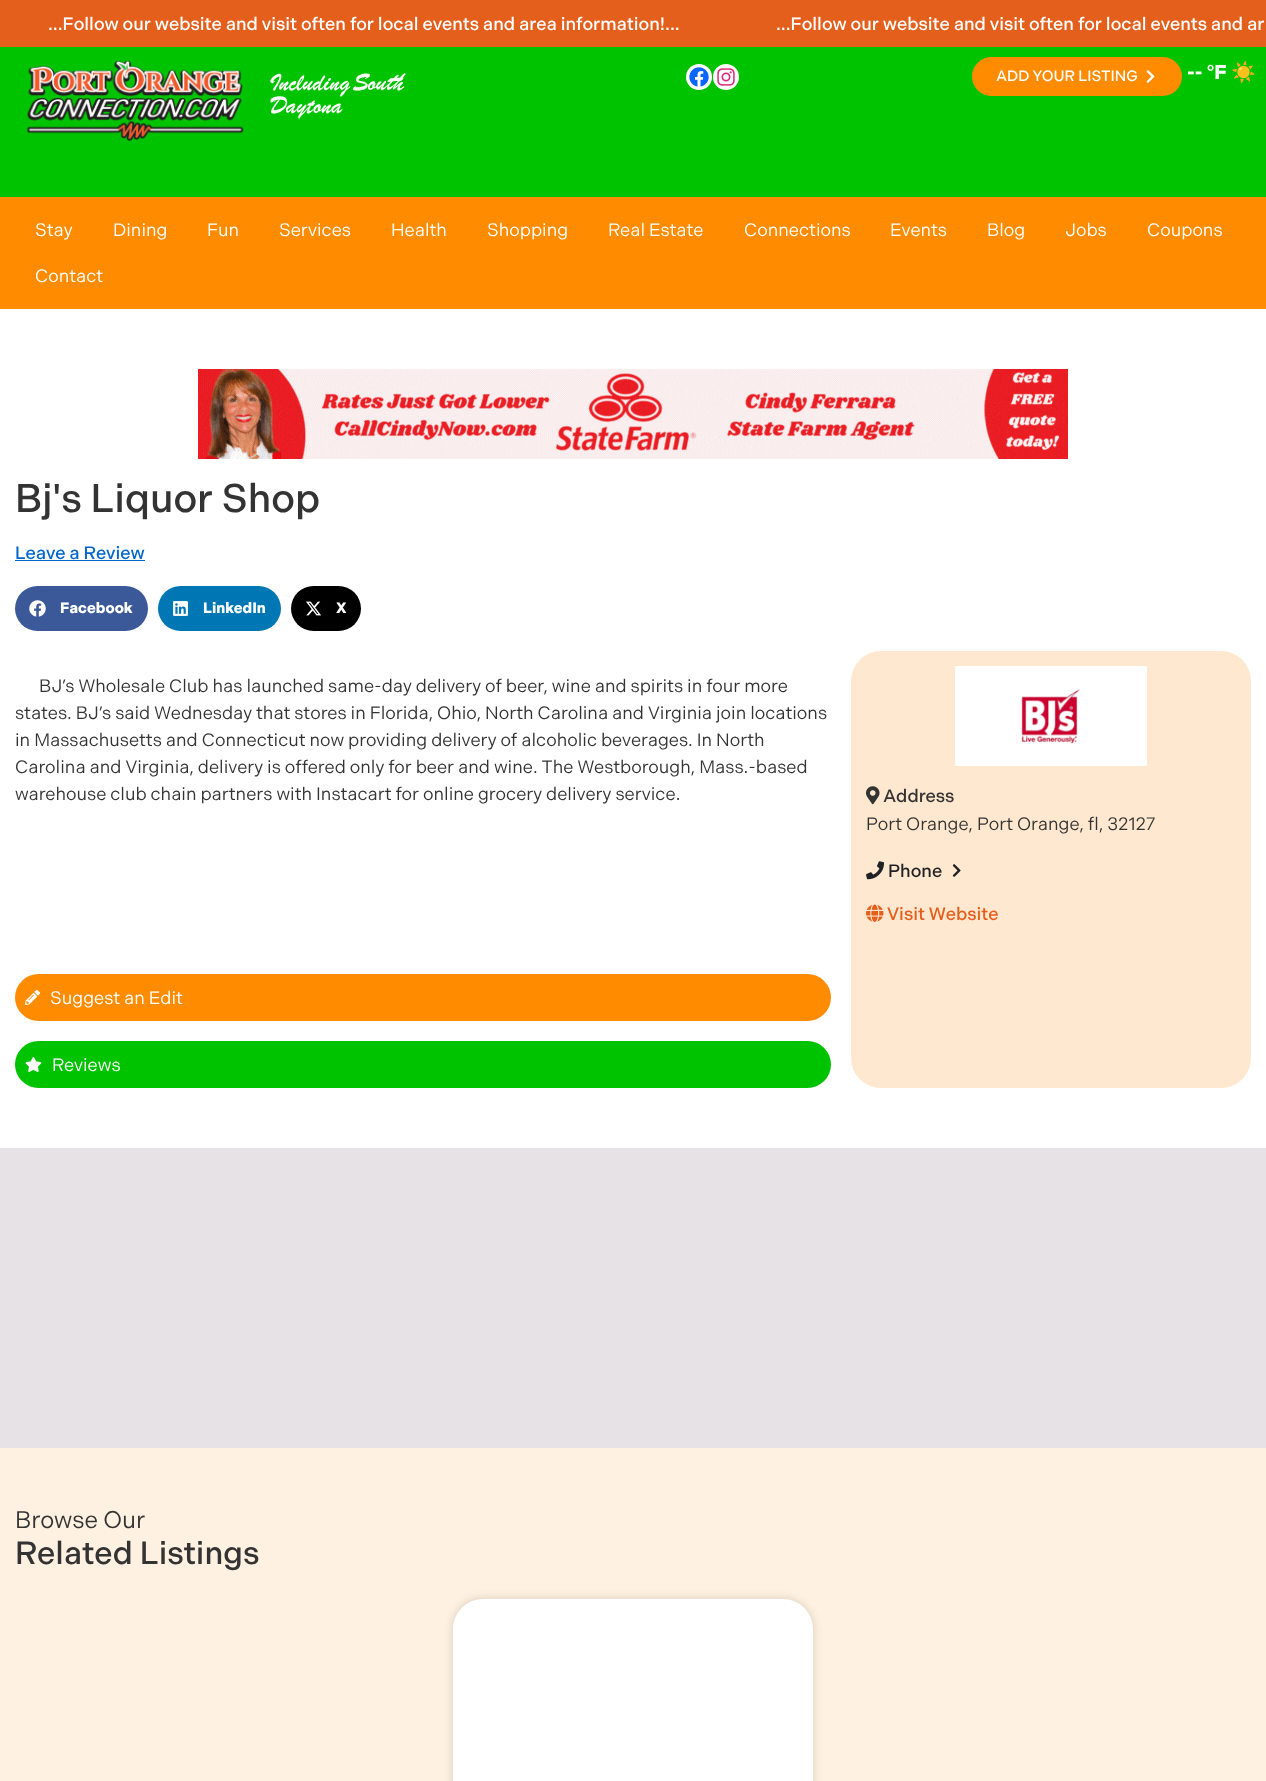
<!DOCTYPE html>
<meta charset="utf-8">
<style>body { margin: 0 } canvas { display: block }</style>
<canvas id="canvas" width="1266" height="1781"></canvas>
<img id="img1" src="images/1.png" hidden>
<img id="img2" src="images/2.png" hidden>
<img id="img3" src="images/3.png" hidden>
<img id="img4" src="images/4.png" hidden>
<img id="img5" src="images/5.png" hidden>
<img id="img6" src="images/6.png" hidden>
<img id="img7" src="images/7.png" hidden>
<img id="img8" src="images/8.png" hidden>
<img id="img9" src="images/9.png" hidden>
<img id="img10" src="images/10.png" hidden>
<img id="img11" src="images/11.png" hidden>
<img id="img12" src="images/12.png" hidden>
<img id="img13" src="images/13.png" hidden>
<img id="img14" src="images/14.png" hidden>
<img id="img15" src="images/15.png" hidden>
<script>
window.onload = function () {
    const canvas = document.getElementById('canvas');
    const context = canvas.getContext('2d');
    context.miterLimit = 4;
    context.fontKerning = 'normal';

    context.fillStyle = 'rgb(255, 255, 255)';
    context.fillRect(0, 0, 1266, 1781);
    context.fillStyle = 'rgb(229, 95, 28)';
    context.fillRect(0, 0, 1266, 47);
    context.fillStyle = 'rgb(0, 195, 0)';
    context.fillRect(0, 47, 1266, 150);
    context.drawImage(document.getElementById('img1'), 26, 60, 218, 82);
    context.fillStyle = 'rgb(255, 255, 255)';
    context.beginPath();
    context.arc(699, 77, 13, 0, 2 * Math.PI);
    context.fill();
    context.drawImage(document.getElementById('img2'), 689, 67, 20, 20);
    context.beginPath();
    context.arc(726, 77, 13, 0, 2 * Math.PI);
    context.fill();
    context.drawImage(document.getElementById('img3'), 717, 68, 18, 18);
    context.fillStyle = 'rgb(255, 139, 0)';
    context.beginPath();
    context.roundRect(972, 57, 210, 39, 19.5);
    context.fill();
    context.drawImage(document.getElementById('img4'), 1146, 70, 9, 13);
    context.fillRect(0, 197, 1266, 112);
    context.drawImage(document.getElementById('img5'), 198, 369, 870, 90);
    context.fillStyle = 'rgb(0, 102, 204)';
    context.fillRect(15, 560, 130, 1);
    context.fillStyle = 'rgb(59, 89, 152)';
    context.beginPath();
    context.roundRect(15, 586, 133, 45, 22.5);
    context.fill();
    context.drawImage(document.getElementById('img6'), 29, 600, 17, 17);
    context.fillStyle = 'rgb(0, 119, 181)';
    context.beginPath();
    context.roundRect(158, 586, 123, 45, 22.5);
    context.fill();
    context.drawImage(document.getElementById('img7'), 173, 601, 15, 15);
    context.fillStyle = 'rgb(0, 0, 0)';
    context.beginPath();
    context.roundRect(291, 586, 70, 45, 22.5);
    context.fill();
    context.drawImage(document.getElementById('img8'), 306, 601, 15, 15);
    context.fillStyle = 'rgb(255, 139, 0)';
    context.beginPath();
    context.roundRect(15, 974, 816, 47, 23.5);
    context.fill();
    context.drawImage(document.getElementById('img9'), 25, 990, 15, 15);
    context.fillStyle = 'rgb(0, 195, 0)';
    context.beginPath();
    context.roundRect(15, 1041, 816, 47, 23.5);
    context.fill();
    context.drawImage(document.getElementById('img10'), 25, 1057, 17, 15);
    context.fillStyle = 'rgb(255, 232, 207)';
    context.beginPath();
    context.roundRect(851, 651, 400, 437, 30);
    context.fill();
    context.drawImage(document.getElementById('img11'), 955, 666, 192, 100);
    context.drawImage(document.getElementById('img12'), 866, 786, 14, 19);
    context.drawImage(document.getElementById('img13'), 866, 861, 18, 19);
    context.drawImage(document.getElementById('img14'), 952, 864, 9, 13);
    context.drawImage(document.getElementById('img15'), 866, 904, 18, 18);
    context.fillStyle = 'rgb(230, 226, 230)';
    context.fillRect(0, 1148, 1266, 300);
    context.fillStyle = 'rgb(255, 241, 225)';
    context.fillRect(0, 1448, 1266, 333);
    context.fillStyle = 'rgba(0, 0, 0, 0.15)';
    context.filter = 'blur(5px)';
    context.beginPath();
    context.roundRect(453, 1599, 360, 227, 30);
    context.fill();
    context.filter = 'none';
    context.fillStyle = 'rgb(255, 255, 255)';
    context.beginPath();
    context.roundRect(453, 1599, 360, 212, 30);
    context.fill();
    context.font = '500 18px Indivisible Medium';
    context.fillText('...Follow our website and visit often for local events and area information!...', 48, 30);
    context.fillText('...Follow our website and visit often for local events and ar', 776, 30);
    context.font = '23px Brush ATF';
    context.fillText('Including South', 270, 90);
    context.fillText('Daytona', 270, 113);
    context.font = '500 15px Indivisible Medium';
    context.fillText('ADD YOUR LISTING', 996, 81);
    context.font = 'bold 20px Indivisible';
    context.fillText('-- °F', 1187, 79);
    context.font = 'bold 20px Noto Color Emoji';
    context.fillText('☀️', 1231, 79);
    context.font = '18px Indivisible';
    context.fillText('Stay', 35, 236);
    context.fillText('Dining', 113, 236);
    context.fillText('Fun', 207, 236);
    context.fillText('Services', 279, 236);
    context.fillText('Health', 391, 236);
    context.fillText('Shopping', 487, 236);
    context.fillText('Real Estate', 608, 236);
    context.fillText('Connections', 744, 236);
    context.fillText('Events', 890, 236);
    context.fillText('Blog', 987, 236);
    context.fillText('Jobs', 1065, 236);
    context.fillText('Coupons', 1147, 236);
    context.fillText('Contact', 35, 282);
    context.font = '500 40px Indivisible Medium';
    context.fillStyle = 'rgb(51, 51, 51)';
    context.fillText('Bj\'s Liquor Shop', 15, 512);
    context.font = '500 18px Indivisible Medium';
    context.fillStyle = 'rgb(0, 102, 204)';
    context.fillText('Leave a Review', 15, 559);
    context.font = 'bold 15px Indivisible';
    context.fillStyle = 'rgb(255, 255, 255)';
    context.fillText('Facebook', 60, 613);
    context.fillText('LinkedIn', 203, 613);
    context.fillText('X', 336, 613);
    context.font = '18px Indivisible';
    context.fillStyle = 'rgb(51, 51, 51)';
    context.fillText('BJ’s Wholesale Club has launched same-day delivery of beer, wine and spirits in four more', 39, 692);
    context.fillText('states. BJ’s said Wednesday that stores in Florida, Ohio, North Carolina and Virginia join locations', 15, 719);
    context.fillText('in Massachusetts and Connecticut now providing delivery of alcoholic beverages. In North', 15, 746);
    context.fillText('Carolina and Virginia, delivery is offered only for beer and wine. The Westborough, Mass.-based', 15, 773);
    context.fillText('warehouse club chain partners with Instacart for online grocery delivery service.', 15, 800);
    context.fillStyle = 'rgb(255, 255, 255)';
    context.fillText('Suggest an Edit', 50, 1004);
    context.fillText('Reviews', 52, 1071);
    context.font = '500 18px Indivisible Medium';
    context.fillStyle = 'rgb(51, 51, 51)';
    context.fillText('Address', 883, 802);
    context.font = '18px Indivisible';
    context.fillText('Port Orange, Port Orange, fl, 32127', 866, 830);
    context.font = '500 18px Indivisible Medium';
    context.fillStyle = 'rgb(31, 33, 36)';
    context.fillText('Phone', 888, 877);
    context.fillStyle = 'rgb(229, 95, 28)';
    context.fillText('Visit Website', 887, 920);
    context.font = '24px Indivisible';
    context.fillStyle = 'rgb(51, 51, 51)';
    context.fillText('Browse Our', 15, 1528);
    context.font = '500 32px Indivisible Medium';
    context.fillText('Related Listings', 15, 1564);
};
</script>
